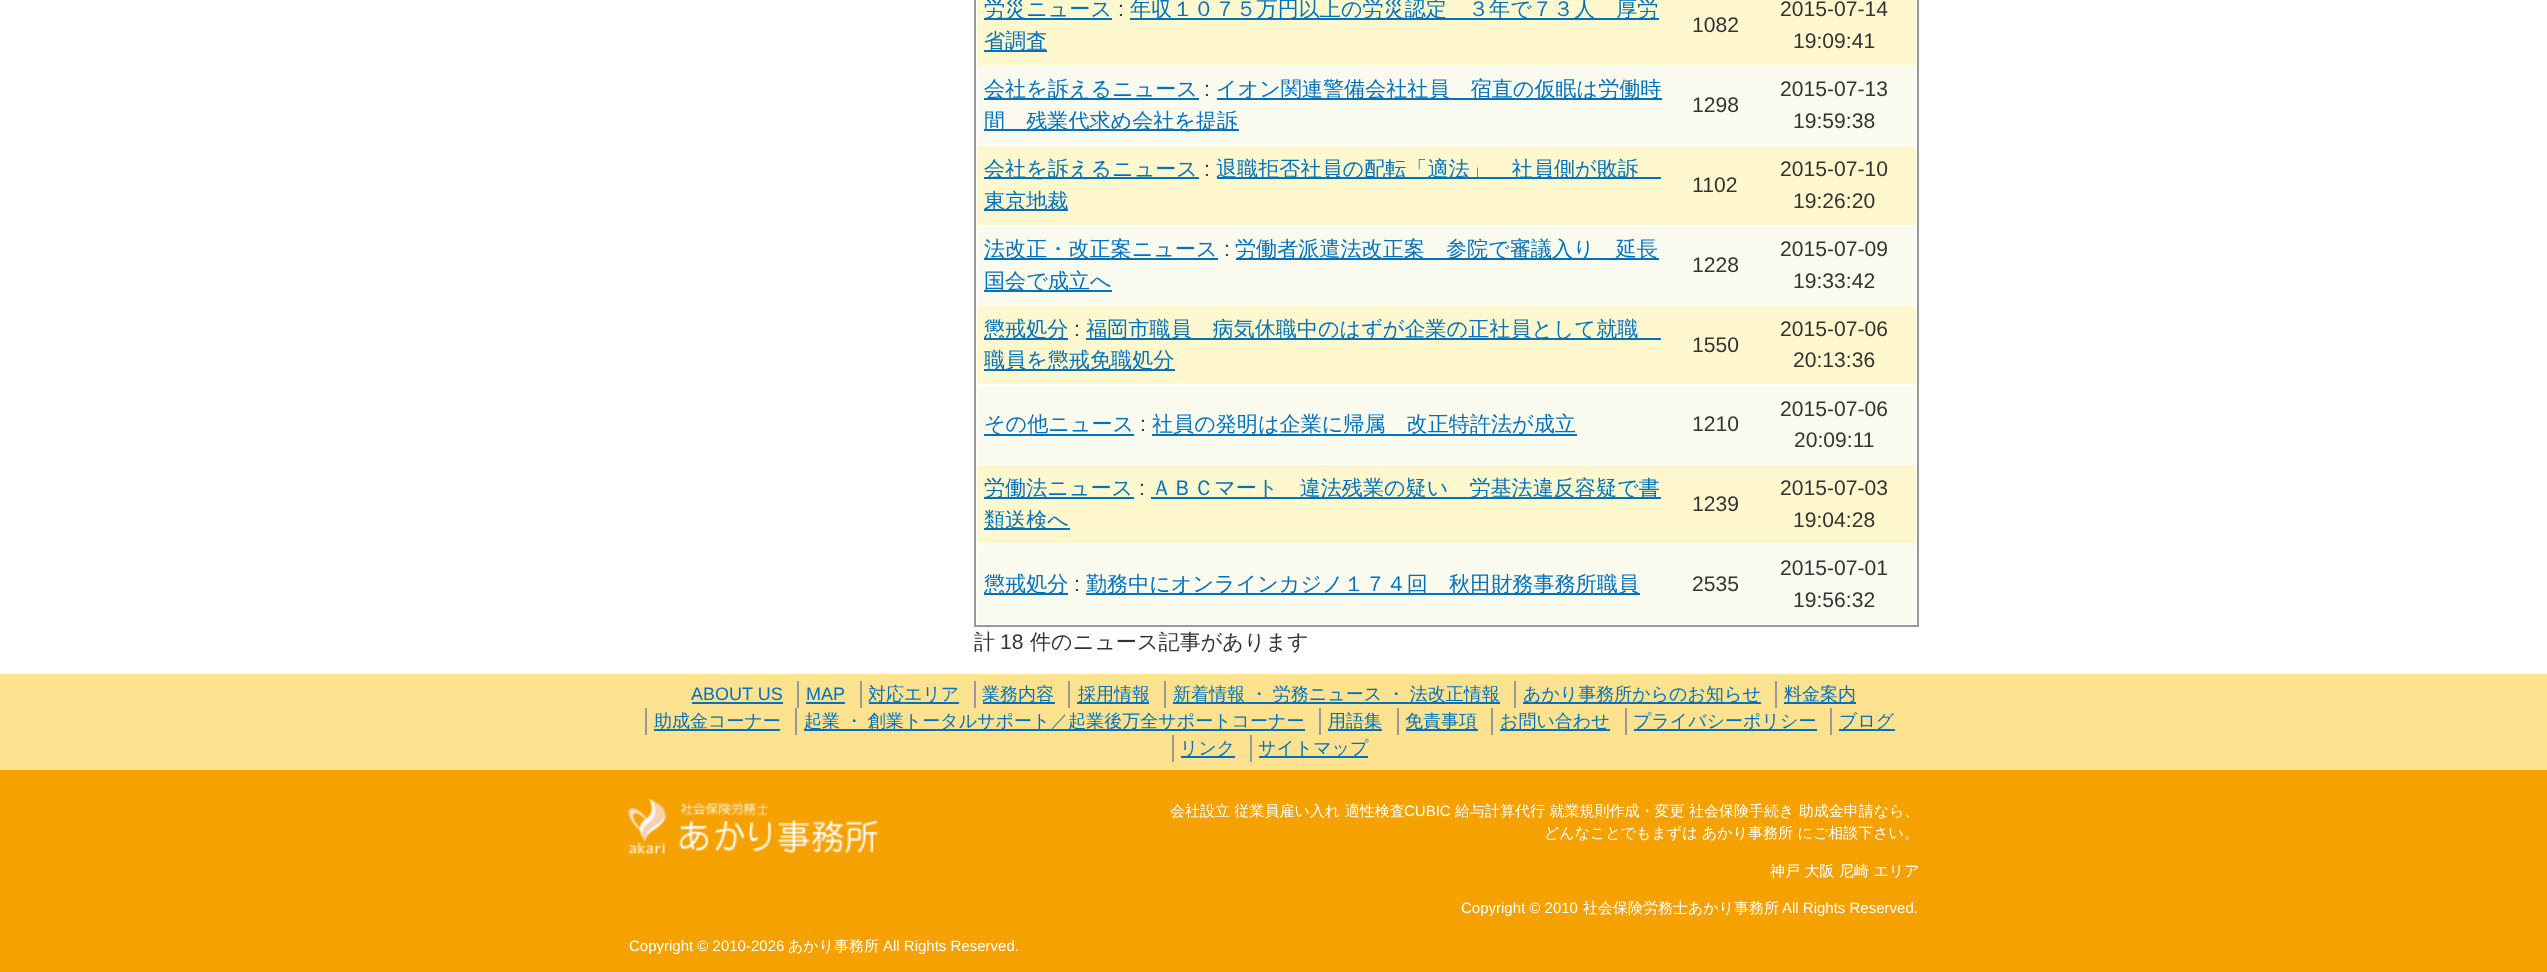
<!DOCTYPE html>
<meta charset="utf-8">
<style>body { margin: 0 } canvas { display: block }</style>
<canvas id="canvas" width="2547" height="972"></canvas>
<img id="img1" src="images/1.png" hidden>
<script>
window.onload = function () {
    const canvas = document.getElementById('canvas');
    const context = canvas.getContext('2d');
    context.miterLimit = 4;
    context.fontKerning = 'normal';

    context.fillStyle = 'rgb(255, 255, 255)';
    context.fillRect(0, 0, 2547, 972);
    context.strokeStyle = 'rgb(153, 153, 153)';
    context.lineWidth = 2;
    context.strokeRect(975, -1, 943, 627);
    context.fillStyle = 'rgb(255, 248, 206)';
    context.fillRect(977, 0, 939, 65);
    context.fillStyle = 'rgb(0, 113, 188)';
    context.fillRect(984, 18, 128, 2);
    context.fillRect(1130, 18, 529, 2);
    context.fillRect(984, 50, 63, 2);
    context.fillStyle = 'rgb(250, 250, 238)';
    context.fillRect(977, 66, 939, 78);
    context.fillStyle = 'rgb(0, 113, 188)';
    context.fillRect(984, 98, 215, 2);
    context.fillRect(1217, 98, 445, 2);
    context.fillRect(984, 129, 255, 2);
    context.fillStyle = 'rgb(255, 248, 206)';
    context.fillRect(977, 146, 939, 79);
    context.fillStyle = 'rgb(0, 113, 188)';
    context.fillRect(984, 177, 215, 2);
    context.fillRect(1217, 177, 444, 2);
    context.fillRect(984, 209, 84, 2);
    context.fillStyle = 'rgb(250, 250, 238)';
    context.fillRect(977, 227, 939, 78);
    context.fillStyle = 'rgb(0, 113, 188)';
    context.fillRect(984, 258, 234, 2);
    context.fillRect(1236, 258, 423, 2);
    context.fillRect(984, 290, 128, 2);
    context.fillStyle = 'rgb(255, 248, 206)';
    context.fillRect(977, 306, 939, 78);
    context.fillStyle = 'rgb(0, 113, 188)';
    context.fillRect(984, 338, 84, 2);
    context.fillRect(1086, 338, 575, 2);
    context.fillRect(984, 369, 191, 2);
    context.fillStyle = 'rgb(250, 250, 238)';
    context.fillRect(977, 386, 939, 78);
    context.fillStyle = 'rgb(0, 113, 188)';
    context.fillRect(984, 434, 150, 2);
    context.fillRect(1152, 434, 425, 2);
    context.fillStyle = 'rgb(255, 248, 206)';
    context.fillRect(977, 465, 939, 78);
    context.fillStyle = 'rgb(0, 113, 188)';
    context.fillRect(984, 497, 150, 2);
    context.fillRect(1151, 497, 510, 2);
    context.fillRect(984, 528, 86, 2);
    context.fillStyle = 'rgb(250, 250, 238)';
    context.fillRect(977, 545, 939, 79);
    context.fillStyle = 'rgb(0, 113, 188)';
    context.fillRect(984, 593, 84, 2);
    context.fillRect(1086, 593, 554, 2);
    context.fillStyle = 'rgb(254, 226, 143)';
    context.fillRect(0, 674, 2547, 96);
    context.fillStyle = 'rgb(0, 113, 188)';
    context.fillRect(692, 702, 91, 2);
    context.fillStyle = 'rgb(153, 153, 153)';
    context.fillRect(797, 681, 2, 27);
    context.fillStyle = 'rgb(0, 113, 188)';
    context.fillRect(806, 702, 39, 2);
    context.fillStyle = 'rgb(153, 153, 153)';
    context.fillRect(860, 681, 2, 27);
    context.fillStyle = 'rgb(0, 113, 188)';
    context.fillRect(869, 702, 90, 2);
    context.fillStyle = 'rgb(153, 153, 153)';
    context.fillRect(974, 681, 2, 27);
    context.fillStyle = 'rgb(0, 113, 188)';
    context.fillRect(983, 702, 72, 2);
    context.fillStyle = 'rgb(153, 153, 153)';
    context.fillRect(1068, 681, 2, 27);
    context.fillStyle = 'rgb(0, 113, 188)';
    context.fillRect(1077, 702, 72, 2);
    context.fillStyle = 'rgb(153, 153, 153)';
    context.fillRect(1164, 681, 2, 27);
    context.fillStyle = 'rgb(0, 113, 188)';
    context.fillRect(1173, 702, 327, 2);
    context.fillStyle = 'rgb(153, 153, 153)';
    context.fillRect(1514, 681, 2, 27);
    context.fillStyle = 'rgb(0, 113, 188)';
    context.fillRect(1523, 702, 238, 2);
    context.fillStyle = 'rgb(153, 153, 153)';
    context.fillRect(1775, 681, 2, 27);
    context.fillStyle = 'rgb(0, 113, 188)';
    context.fillRect(1784, 702, 72, 2);
    context.fillStyle = 'rgb(153, 153, 153)';
    context.fillRect(645, 708, 2, 27);
    context.fillStyle = 'rgb(0, 113, 188)';
    context.fillRect(654, 729, 126, 2);
    context.fillStyle = 'rgb(153, 153, 153)';
    context.fillRect(795, 708, 2, 27);
    context.fillStyle = 'rgb(0, 113, 188)';
    context.fillRect(804, 729, 501, 2);
    context.fillStyle = 'rgb(153, 153, 153)';
    context.fillRect(1319, 708, 2, 27);
    context.fillStyle = 'rgb(0, 113, 188)';
    context.fillRect(1328, 729, 54, 2);
    context.fillStyle = 'rgb(153, 153, 153)';
    context.fillRect(1397, 708, 2, 27);
    context.fillStyle = 'rgb(0, 113, 188)';
    context.fillRect(1406, 729, 72, 2);
    context.fillStyle = 'rgb(153, 153, 153)';
    context.fillRect(1491, 708, 2, 27);
    context.fillStyle = 'rgb(0, 113, 188)';
    context.fillRect(1500, 729, 110, 2);
    context.fillStyle = 'rgb(153, 153, 153)';
    context.fillRect(1625, 708, 2, 27);
    context.fillStyle = 'rgb(0, 113, 188)';
    context.fillRect(1634, 729, 183, 2);
    context.fillStyle = 'rgb(153, 153, 153)';
    context.fillRect(1830, 708, 2, 27);
    context.fillStyle = 'rgb(0, 113, 188)';
    context.fillRect(1839, 729, 56, 2);
    context.fillStyle = 'rgb(153, 153, 153)';
    context.fillRect(1172, 735, 2, 27);
    context.fillStyle = 'rgb(0, 113, 188)';
    context.fillRect(1181, 756, 54, 2);
    context.fillStyle = 'rgb(153, 153, 153)';
    context.fillRect(1250, 735, 2, 27);
    context.fillStyle = 'rgb(0, 113, 188)';
    context.fillRect(1259, 756, 109, 2);
    context.fillStyle = 'rgb(245, 161, 0)';
    context.fillRect(0, 770, 2547, 202);
    context.drawImage(document.getElementById('img1'), 628, 799, 250, 56);
    context.font = '500 21.1px WenQuanYi Zen Hei';
    context.fillStyle = 'rgb(0, 113, 188)';
    context.fillText('労災ニュース', 984, 16);
    context.font = '21.1px Liberation Sans';
    context.fillStyle = 'rgb(51, 51, 51)';
    context.fillText(':', 1118, 16);
    context.font = '500 21.1px WenQuanYi Zen Hei';
    context.fillStyle = 'rgb(0, 113, 188)';
    context.fillText('年収１０７５万円以上の労災認定　３年で７３人　厚労', 1130, 16);
    context.fillText('省調査', 984, 48);
    context.font = '21.1px Liberation Sans';
    context.fillStyle = 'rgb(51, 51, 51)';
    context.fillText('1082', 1692, 32);
    context.fillText('2015-07-14', 1780, 16);
    context.fillText('19:09:41', 1793, 48);
    context.font = '500 21.1px WenQuanYi Zen Hei';
    context.fillStyle = 'rgb(0, 113, 188)';
    context.fillText('会社を訴えるニュース', 984, 96);
    context.font = '21.1px Liberation Sans';
    context.fillStyle = 'rgb(51, 51, 51)';
    context.fillText(':', 1204, 96);
    context.font = '500 21.1px WenQuanYi Zen Hei';
    context.fillStyle = 'rgb(0, 113, 188)';
    context.fillText('イオン関連警備会社社員　宿直の仮眠は労働時', 1216, 96);
    context.fillText('間　残業代求め会社を提訴', 984, 128);
    context.font = '21.1px Liberation Sans';
    context.fillStyle = 'rgb(51, 51, 51)';
    context.fillText('1298', 1692, 112);
    context.fillText('2015-07-13', 1780, 96);
    context.fillText('19:59:38', 1793, 128);
    context.font = '500 21.1px WenQuanYi Zen Hei';
    context.fillStyle = 'rgb(0, 113, 188)';
    context.fillText('会社を訴えるニュース', 984, 176);
    context.font = '21.1px Liberation Sans';
    context.fillStyle = 'rgb(51, 51, 51)';
    context.fillText(':', 1204, 176);
    context.font = '500 21.1px WenQuanYi Zen Hei';
    context.fillStyle = 'rgb(0, 113, 188)';
    context.fillText('退職拒否社員の配転「適法」　社員側が敗訴', 1216, 176);
    context.fillText('東京地裁', 984, 208);
    context.font = '21.1px Liberation Sans';
    context.fillStyle = 'rgb(51, 51, 51)';
    context.fillText('1102', 1692, 192);
    context.fillText('2015-07-10', 1780, 176);
    context.fillText('19:26:20', 1793, 208);
    context.font = '500 21.1px WenQuanYi Zen Hei';
    context.fillStyle = 'rgb(0, 113, 188)';
    context.fillText('法改正・改正案ニュース', 984, 256);
    context.font = '21.1px Liberation Sans';
    context.fillStyle = 'rgb(51, 51, 51)';
    context.fillText(':', 1224, 256);
    context.font = '500 21.1px WenQuanYi Zen Hei';
    context.fillStyle = 'rgb(0, 113, 188)';
    context.fillText('労働者派遣法改正案　参院で審議入り　延長', 1235, 256);
    context.fillText('国会で成立へ', 984, 288);
    context.font = '21.1px Liberation Sans';
    context.fillStyle = 'rgb(51, 51, 51)';
    context.fillText('1228', 1692, 272);
    context.fillText('2015-07-09', 1780, 256);
    context.fillText('19:33:42', 1793, 288);
    context.font = '500 21.1px WenQuanYi Zen Hei';
    context.fillStyle = 'rgb(0, 113, 188)';
    context.fillText('懲戒処分', 984, 336);
    context.font = '21.1px Liberation Sans';
    context.fillStyle = 'rgb(51, 51, 51)';
    context.fillText(':', 1074, 336);
    context.font = '500 21.1px WenQuanYi Zen Hei';
    context.fillStyle = 'rgb(0, 113, 188)';
    context.fillText('福岡市職員　病気休職中のはずが企業の正社員として就職', 1086, 336);
    context.fillText('職員を懲戒免職処分', 984, 367);
    context.font = '21.1px Liberation Sans';
    context.fillStyle = 'rgb(51, 51, 51)';
    context.fillText('1550', 1692, 352);
    context.fillText('2015-07-06', 1780, 336);
    context.fillText('20:13:36', 1793, 367);
    context.font = '500 21.1px WenQuanYi Zen Hei';
    context.fillStyle = 'rgb(0, 113, 188)';
    context.fillText('その他ニュース', 984, 431);
    context.font = '21.1px Liberation Sans';
    context.fillStyle = 'rgb(51, 51, 51)';
    context.fillText(':', 1140, 431);
    context.font = '500 21.1px WenQuanYi Zen Hei';
    context.fillStyle = 'rgb(0, 113, 188)';
    context.fillText('社員の発明は企業に帰属　改正特許法が成立', 1152, 431);
    context.font = '21.1px Liberation Sans';
    context.fillStyle = 'rgb(51, 51, 51)';
    context.fillText('1210', 1692, 431);
    context.fillText('2015-07-06', 1780, 416);
    context.fillText('20:09:11', 1794, 447);
    context.font = '500 21.1px WenQuanYi Zen Hei';
    context.fillStyle = 'rgb(0, 113, 188)';
    context.fillText('労働法ニュース', 984, 495);
    context.font = '21.1px Liberation Sans';
    context.fillStyle = 'rgb(51, 51, 51)';
    context.fillText(':', 1139, 495);
    context.font = '500 21.1px WenQuanYi Zen Hei';
    context.fillStyle = 'rgb(0, 113, 188)';
    context.fillText('ＡＢＣマート　違法残業の疑い　労基法違反容疑で書', 1151, 495);
    context.fillText('類送検へ', 984, 527);
    context.font = '21.1px Liberation Sans';
    context.fillStyle = 'rgb(51, 51, 51)';
    context.fillText('1239', 1692, 511);
    context.fillText('2015-07-03', 1780, 495);
    context.fillText('19:04:28', 1793, 527);
    context.font = '500 21.1px WenQuanYi Zen Hei';
    context.fillStyle = 'rgb(0, 113, 188)';
    context.fillText('懲戒処分', 984, 591);
    context.font = '21.1px Liberation Sans';
    context.fillStyle = 'rgb(51, 51, 51)';
    context.fillText(':', 1074, 591);
    context.font = '500 21.1px WenQuanYi Zen Hei';
    context.fillStyle = 'rgb(0, 113, 188)';
    context.fillText('勤務中にオンラインカジノ１７４回　秋田財務事務所職員', 1086, 591);
    context.font = '21.1px Liberation Sans';
    context.fillStyle = 'rgb(51, 51, 51)';
    context.fillText('2535', 1692, 591);
    context.fillText('2015-07-01', 1780, 575);
    context.fillText('19:56:32', 1793, 607);
    context.font = '500 21.1px WenQuanYi Zen Hei';
    context.fillText('計', 974, 649);
    context.font = '21.1px Liberation Sans';
    context.fillText('18', 1000, 649);
    context.font = '500 21.1px WenQuanYi Zen Hei';
    context.fillText('件のニュース記事があります', 1030, 649);
    context.font = '18px Liberation Sans';
    context.fillStyle = 'rgb(0, 113, 188)';
    context.fillText('ABOUT US', 691, 700);
    context.fillText('MAP', 806, 700);
    context.font = '500 18px WenQuanYi Zen Hei';
    context.fillText('対応エリア', 868, 700);
    context.fillText('業務内容', 982, 700);
    context.fillText('採用情報', 1078, 700);
    context.wordSpacing = '-0.5px';
    context.fillText('新着情報 ・ 労務ニュース ・ 法改正情報', 1173, 700);
    context.wordSpacing = '0px';
    context.fillText('あかり事務所からのお知らせ', 1523, 700);
    context.fillText('料金案内', 1784, 700);
    context.fillText('助成金コーナー', 654, 727);
    context.wordSpacing = '-0.5px';
    context.fillText('起業 ・ 創業トータルサポート／起業後万全サポートコーナー', 804, 727);
    context.wordSpacing = '0px';
    context.fillText('用語集', 1328, 727);
    context.fillText('免責事項', 1405, 727);
    context.fillText('お問い合わせ', 1500, 727);
    context.fillText('プライバシーポリシー', 1633, 727);
    context.fillText('ブログ', 1839, 727);
    context.fillText('リンク', 1180, 754);
    context.fillText('サイトマップ', 1258, 754);
    context.font = '500 15px WenQuanYi Zen Hei';
    context.fillStyle = 'rgb(255, 255, 255)';
    context.fillText('会社設立 従業員雇い入れ 適性検査', 1170, 816);
    context.font = '15px Liberation Sans';
    context.fillText('CUBIC', 1404, 816);
    context.font = '500 15px WenQuanYi Zen Hei';
    context.fillText('給与計算代行 就業規則作成・変更 社会保険手続き 助成金申請なら、', 1455, 816);
    context.fillText('どんなことでもまずは あかり事務所 にご相談下さい。', 1544, 838);
    context.fillText('神戸 大阪 尼崎 エリア', 1770, 876);
    context.font = '15px Liberation Sans';
    context.fillText('Copyright © 2010', 1461, 913);
    context.font = '500 15px WenQuanYi Zen Hei';
    context.fillText('社会保険労務士あかり事務所', 1583, 913);
    context.font = '15px Liberation Sans';
    context.fillText('All Rights Reserved.', 1782, 913);
    context.fillText('Copyright © 2010-2026', 629, 951);
    context.font = '500 15px WenQuanYi Zen Hei';
    context.fillText('あかり事務所', 788, 951);
    context.font = '15px Liberation Sans';
    context.fillText('All Rights Reserved.', 883, 951);
};
</script>
